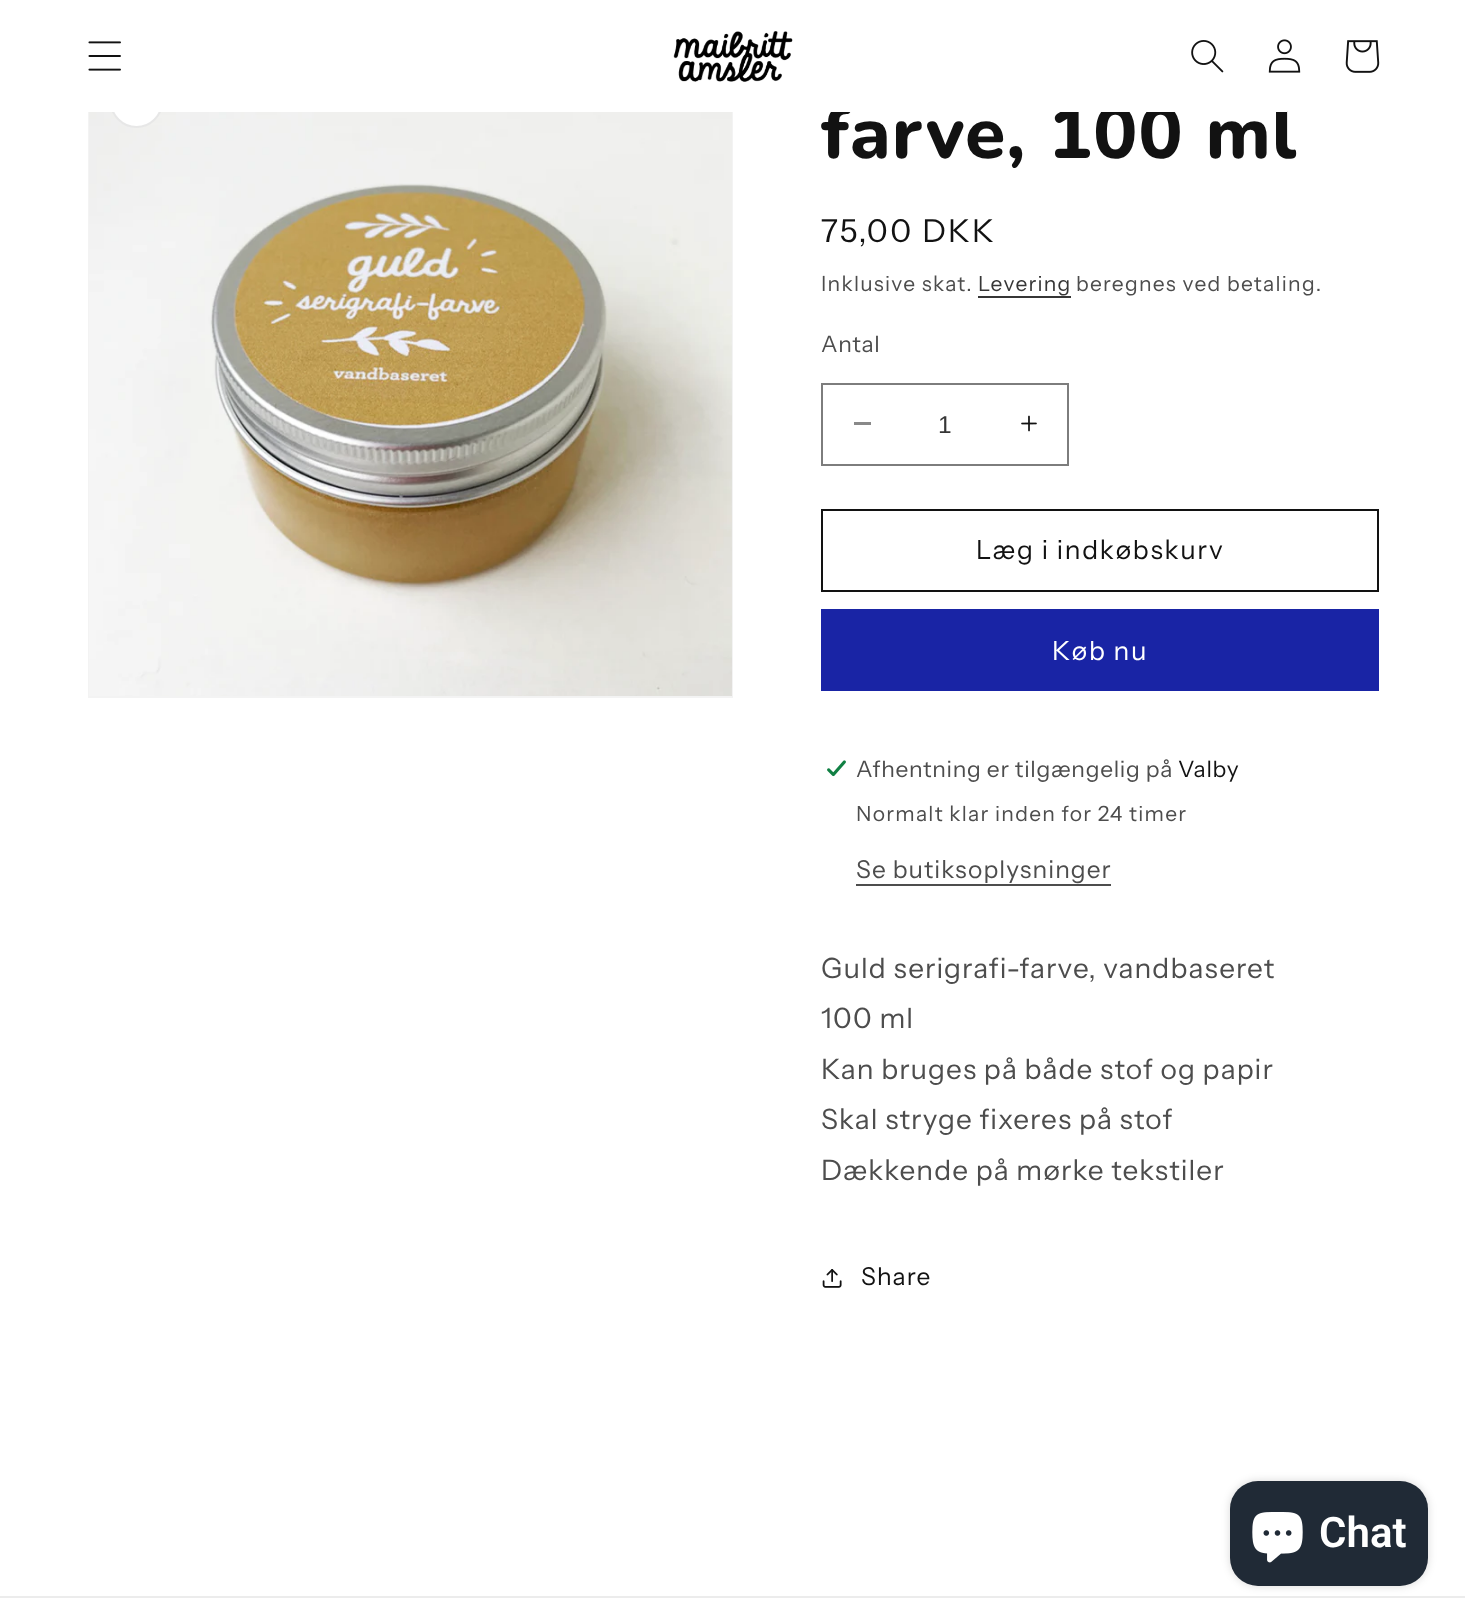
<!DOCTYPE html>
<meta charset="utf-8">
<style>body { margin: 0 } canvas { display: block }</style>
<canvas id="canvas" width="1465" height="1621"></canvas>
<img id="img1" src="images/5.png" hidden>
<img id="img2" src="images/6.png" hidden>
<img id="img3" src="images/7.png" hidden>
<img id="img4" src="images/8.png" hidden>
<img id="img5" src="images/9.png" hidden>
<img id="img6" src="images/10.png" hidden>
<img id="img7" src="images/3.png" hidden>
<img id="img8" src="images/1.png" hidden>
<img id="img9" src="images/4.png" hidden>
<img id="img10" src="images/2.png" hidden>
<script>
window.onload = function () {
    const canvas = document.getElementById('canvas');
    const context = canvas.getContext('2d');
    context.miterLimit = 4;
    context.fontKerning = 'normal';

    context.fillStyle = 'rgb(255, 255, 255)';
    context.fillRect(0, 0, 1465, 1621);
    context.drawImage(document.getElementById('img1'), 1345, 40, 35, 33);
    context.strokeStyle = 'rgb(243, 243, 243)';
    context.lineWidth = 2;
    context.strokeRect(89, 54, 643, 643);
    context.drawImage(document.getElementById('img2'), 89, 112, 643, 584);
    context.beginPath();
    context.arc(136.5, 101.5, 26.5, 0, 2 * Math.PI);
    context.fill();
    context.beginPath();
    context.arc(136.5, 101.5, 25.5, 0, 2 * Math.PI);
    context.strokeStyle = 'rgba(18, 18, 18, 0.1)';
    context.stroke();
    context.fillStyle = 'rgb(54, 54, 54)';
    context.fillRect(978, 296, 93, 2);
    context.fillStyle = 'rgb(137, 137, 137)';
    context.fillRect(854, 422, 17, 3);
    context.drawImage(document.getElementById('img3'), 1021, 415, 16, 17);
    context.strokeStyle = 'rgb(125, 125, 125)';
    context.strokeRect(822, 384, 246, 81);
    context.strokeStyle = 'rgb(18, 18, 18)';
    context.strokeRect(822, 510, 556, 81);
    context.fillStyle = 'rgb(25, 36, 165)';
    context.fillRect(821, 609, 558, 82);
    context.drawImage(document.getElementById('img4'), 827, 760, 19, 17);
    context.fillStyle = 'rgb(77, 77, 77)';
    context.fillRect(856, 884, 255, 2);
    context.drawImage(document.getElementById('img5'), 822, 1269, 20, 19);
    context.fillStyle = 'rgb(236, 236, 236)';
    context.fillRect(0, 1596, 1465, 2);
    context.fillStyle = 'rgba(0, 0, 0, 0.15)';
    context.filter = 'blur(4.5px)';
    context.beginPath();
    context.roundRect(1230, 1481, 198, 105, 28);
    context.fill();
    context.filter = 'none';
    context.fillStyle = 'rgb(32, 42, 54)';
    context.beginPath();
    context.roundRect(1230, 1481, 198, 105, 28);
    context.fill();
    context.drawImage(document.getElementById('img6'), 1252, 1512, 51, 51);
    context.letterSpacing = '1.1px';
    context.font = '800 73.5px Nunito';
    context.fillStyle = 'rgb(18, 18, 18)';
    context.fillText('farve, 100 ml', 821, 158);
    context.fillStyle = 'rgb(255, 255, 255)';
    context.fillRect(88, 53, 1199, 59);
    context.drawImage(document.getElementById('img7'), 1191, 40, 33, 33);
    context.drawImage(document.getElementById('img8'), 88, 41, 33, 30);
    context.drawImage(document.getElementById('img9'), 1268, 39, 33, 34);
    context.drawImage(document.getElementById('img10'), 673, 31, 120, 51);
    context.letterSpacing = '2.25px';
    context.font = '31.5px Instrument Sans';
    context.fillStyle = 'rgb(18, 18, 18)';
    context.fillText('75,00 DKK', 821, 242);
    context.letterSpacing = '1.25px';
    context.font = '21px Instrument Sans';
    context.fillStyle = 'rgb(77, 77, 77)';
    context.fillText('Inklusive skat.', 821, 291);
    context.fillStyle = 'rgb(54, 54, 54)';
    context.fillText('Levering', 978, 291);
    context.fillStyle = 'rgb(77, 77, 77)';
    context.fillText('beregnes ved betaling.', 1076, 291);
    context.letterSpacing = '0.7px';
    context.font = '22.75px Instrument Sans';
    context.fillText('Antal', 821, 352);
    context.letterSpacing = '0px';
    context.font = '24.5px Liberation Sans';
    context.fillStyle = 'rgb(54, 54, 54)';
    context.fillText('1', 938, 433);
    context.letterSpacing = '1.75px';
    context.font = '26.25px Instrument Sans';
    context.fillStyle = 'rgb(18, 18, 18)';
    context.fillText('Læg i indkøbskurv', 976, 559);
    context.fillStyle = 'rgb(255, 255, 255)';
    context.fillText('Køb nu', 1052, 660);
    context.letterSpacing = '0.7px';
    context.font = '22.75px Instrument Sans';
    context.fillStyle = 'rgb(77, 77, 77)';
    context.fillText('Afhentning er tilgængelig på', 856, 777);
    context.fillStyle = 'rgb(18, 18, 18)';
    context.fillText('Valby', 1178, 777);
    context.letterSpacing = '1.25px';
    context.font = '21px Instrument Sans';
    context.fillStyle = 'rgb(77, 77, 77)';
    context.fillText('Normalt klar inden for 24 timer', 856, 821);
    context.letterSpacing = '1.05px';
    context.font = '24.5px Instrument Sans';
    context.fillText('Se butiksoplysninger', 856, 878);
    context.font = '28px Instrument Sans';
    context.fillText('Guld serigrafi-farve, vandbaseret', 821, 978);
    context.fillText('100 ml', 821, 1028);
    context.fillText('Kan bruges på både stof og papir', 821, 1079);
    context.fillText('Skal stryge fixeres på stof', 821, 1129);
    context.fillText('Dækkende på mørke tekstiler', 821, 1180);
    context.font = '24.5px Instrument Sans';
    context.fillStyle = 'rgb(18, 18, 18)';
    context.fillText('Share', 861, 1285);
    context.letterSpacing = '0px';
    context.font = '600 42px Roboto';
    context.fillStyle = 'rgb(255, 255, 255)';
    context.fillText('Chat', 1319, 1547);
};
</script>
